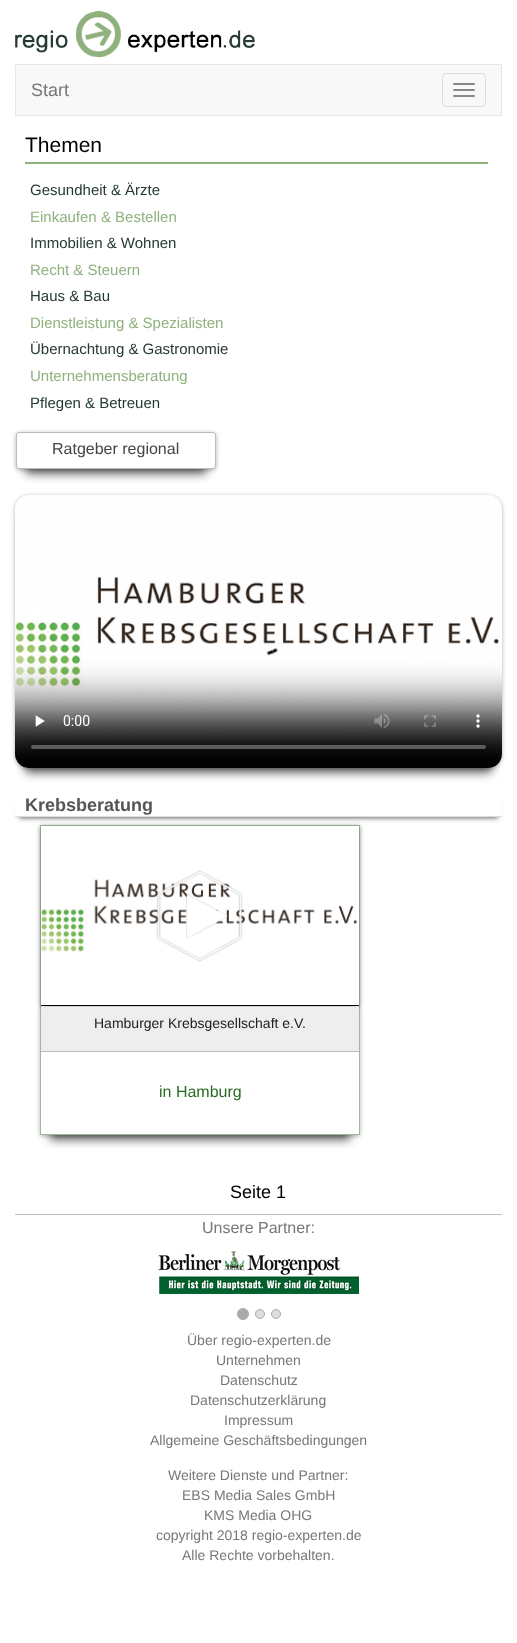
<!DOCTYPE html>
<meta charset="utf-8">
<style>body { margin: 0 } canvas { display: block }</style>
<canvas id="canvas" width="517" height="1643"></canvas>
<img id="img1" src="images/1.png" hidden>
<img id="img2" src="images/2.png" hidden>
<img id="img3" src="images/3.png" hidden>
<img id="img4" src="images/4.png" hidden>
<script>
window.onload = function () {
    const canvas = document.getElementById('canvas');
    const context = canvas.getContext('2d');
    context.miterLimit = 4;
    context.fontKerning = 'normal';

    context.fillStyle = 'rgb(255, 255, 255)';
    context.fillRect(0, 0, 517, 1643);
    context.drawImage(document.getElementById('img1'), 15, 10, 240, 48);
    context.fillStyle = 'rgb(248, 248, 248)';
    context.beginPath();
    context.rect(15.5, 64.5, 486, 51);
    context.fill();
    context.strokeStyle = 'rgb(231, 231, 231)';
    context.stroke();
    context.beginPath();
    context.roundRect(442.5, 73.5, 43, 33, 3.5);
    context.strokeStyle = 'rgb(221, 221, 221)';
    context.stroke();
    context.fillStyle = 'rgb(136, 136, 136)';
    context.beginPath();
    context.roundRect(453, 83, 22, 2, 1);
    context.fill();
    context.beginPath();
    context.roundRect(453, 89, 22, 2, 1);
    context.fill();
    context.beginPath();
    context.roundRect(453, 95, 22, 2, 1);
    context.fill();
    context.fillStyle = 'rgb(143, 177, 125)';
    context.fillRect(25, 162, 463, 2);
    context.fillStyle = 'rgba(0, 0, 0, 0.3)';
    context.filter = 'blur(2px)';
    context.beginPath();
    context.roundRect(16, 433, 200, 37, 3);
    context.fill();
    context.filter = 'none';
    context.fillStyle = 'rgba(0, 0, 0, 0.6)';
    context.filter = 'blur(5px)';
    context.beginPath();
    context.rect(26, 457, 180, 17);
    context.fill();
    context.filter = 'none';
    context.fillStyle = 'rgb(255, 255, 255)';
    context.beginPath();
    context.roundRect(16.5, 432.5, 199, 36, 2.5);
    context.fill();
    context.strokeStyle = 'rgb(187, 187, 187)';
    context.stroke();
    context.fillStyle = 'rgba(0, 0, 0, 0.3)';
    context.filter = 'blur(2px)';
    context.beginPath();
    context.roundRect(15, 496, 487, 273, 14);
    context.fill();
    context.filter = 'none';
    context.fillStyle = 'rgba(0, 0, 0, 0.6)';
    context.filter = 'blur(5px)';
    context.beginPath();
    context.roundRect(25, 520, 467, 253, 4);
    context.fill();
    context.filter = 'none';
    context.drawImage(document.getElementById('img2'), 15, 495, 487, 273);
    context.save();
    context.beginPath();
    context.moveTo(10, 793);
    context.lineTo(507, 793);
    context.lineTo(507, 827);
    context.lineTo(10, 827);
    context.closePath();
    context.moveTo(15, 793);
    context.lineTo(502, 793);
    context.lineTo(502, 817);
    context.lineTo(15, 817);
    context.closePath();
    context.clip('evenodd');
    context.filter = 'blur(2.5px)';
    context.beginPath();
    context.rect(19, 802, 479, 16);
    context.fill();
    context.filter = 'none';
    context.restore();
    context.fillStyle = 'rgb(221, 221, 221)';
    context.fillRect(15, 816, 487, 1);
    context.save();
    context.beginPath();
    context.moveTo(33, 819);
    context.lineTo(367, 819);
    context.lineTo(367, 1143);
    context.lineTo(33, 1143);
    context.closePath();
    context.moveTo(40, 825);
    context.lineTo(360, 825);
    context.lineTo(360, 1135);
    context.lineTo(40, 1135);
    context.closePath();
    context.clip('evenodd');
    context.fillStyle = 'rgba(0, 0, 0, 0.3)';
    context.filter = 'blur(2px)';
    context.beginPath();
    context.rect(40, 826, 320, 310);
    context.fill();
    context.filter = 'none';
    context.restore();
    context.save();
    context.beginPath();
    context.rect(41, 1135, 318, 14);
    context.clip();
    context.fillStyle = 'rgba(0, 0, 0, 0.6)';
    context.filter = 'blur(5px)';
    context.beginPath();
    context.rect(50, 850, 300, 290);
    context.fill();
    context.filter = 'none';
    context.restore();
    context.strokeStyle = 'rgb(153, 187, 153)';
    context.strokeRect(40.5, 825.5, 319, 309);
    context.fillStyle = 'rgba(0, 0, 0, 0.3)';
    context.filter = 'blur(2px)';
    context.beginPath();
    context.rect(41, 827, 318, 180);
    context.fill();
    context.filter = 'none';
    context.fillStyle = 'rgb(0, 0, 0)';
    context.fillRect(41, 1005, 318, 1);
    context.drawImage(document.getElementById('img3'), 41, 826, 318, 179);
    context.fillStyle = 'rgb(238, 238, 238)';
    context.fillRect(41, 1007, 318, 44);
    context.fillStyle = 'rgb(187, 187, 187)';
    context.fillRect(41, 1051, 318, 1);
    context.beginPath();
    context.roundRect(15, 1214, 487, 1, 0.5);
    context.fill();
    context.drawImage(document.getElementById('img4'), 158, 1251, 201, 44);
    context.fillStyle = 'rgb(170, 170, 170)';
    context.beginPath();
    context.arc(243, 1314, 5.5, 0, 2 * Math.PI);
    context.fill();
    context.strokeStyle = 'rgb(170, 170, 170)';
    context.stroke();
    context.fillStyle = 'rgb(221, 221, 221)';
    context.beginPath();
    context.arc(260, 1314, 4.5, 0, 2 * Math.PI);
    context.fill();
    context.stroke();
    context.beginPath();
    context.arc(276, 1314, 4.5, 0, 2 * Math.PI);
    context.fill();
    context.stroke();
    context.font = '18px Liberation Sans';
    context.fillStyle = 'rgb(119, 119, 119)';
    context.fillText('Start', 31, 96);
    context.font = '21px Liberation Sans';
    context.fillStyle = 'rgb(0, 0, 0)';
    context.fillText('Themen', 25, 152);
    context.font = '15px Liberation Sans';
    context.fillStyle = 'rgb(38, 58, 53)';
    context.fillText('Gesundheit & Ärzte', 30, 195);
    context.fillStyle = 'rgb(143, 177, 125)';
    context.fillText('Einkaufen & Bestellen', 30, 222);
    context.fillStyle = 'rgb(38, 58, 53)';
    context.fillText('Immobilien & Wohnen', 30, 248);
    context.fillStyle = 'rgb(143, 177, 125)';
    context.fillText('Recht & Steuern', 30, 275);
    context.fillStyle = 'rgb(38, 58, 53)';
    context.fillText('Haus & Bau', 30, 301);
    context.fillStyle = 'rgb(143, 177, 125)';
    context.fillText('Dienstleistung & Spezialisten', 30, 328);
    context.fillStyle = 'rgb(38, 58, 53)';
    context.fillText('Übernachtung & Gastronomie', 30, 354);
    context.fillStyle = 'rgb(143, 177, 125)';
    context.fillText('Unternehmensberatung', 30, 381);
    context.fillStyle = 'rgb(38, 58, 53)';
    context.fillText('Pflegen & Betreuen', 30, 408);
    context.font = '16px Liberation Sans';
    context.fillStyle = 'rgb(68, 68, 68)';
    context.fillText('Ratgeber regional', 52, 454);
    context.font = 'bold 18px Liberation Sans';
    context.fillStyle = 'rgb(85, 85, 85)';
    context.fillText('Krebsberatung', 25, 811);
    context.font = '14px Liberation Sans';
    context.fillStyle = 'rgb(32, 32, 32)';
    context.fillText('Hamburger Krebsgesellschaft e.V.', 94, 1028);
    context.font = '16px Liberation Sans';
    context.fillStyle = 'rgb(41, 109, 34)';
    context.fillText('in Hamburg', 159, 1097);
    context.font = '18px Liberation Sans';
    context.fillStyle = 'rgb(0, 0, 0)';
    context.fillText('Seite 1', 230, 1198);
    context.font = '16px Liberation Sans';
    context.fillStyle = 'rgb(119, 119, 119)';
    context.fillText('Unsere Partner:', 202, 1233);
    context.font = '14px Liberation Sans';
    context.fillText('Über regio-experten.de', 187, 1345);
    context.fillText('Unternehmen', 216, 1365);
    context.fillText('Datenschutz', 220, 1385);
    context.fillText('Datenschutzerklärung', 190, 1405);
    context.fillText('Impressum', 224, 1425);
    context.fillText('Allgemeine Geschäftsbedingungen', 150, 1445);
    context.fillText('Weitere Dienste und Partner:', 168, 1480);
    context.fillText('EBS Media Sales GmbH', 182, 1500);
    context.fillText('KMS Media OHG', 204, 1520);
    context.fillText('copyright 2018 regio-experten.de', 156, 1540);
    context.fillText('Alle Rechte vorbehalten.', 182, 1560);
};
</script>
